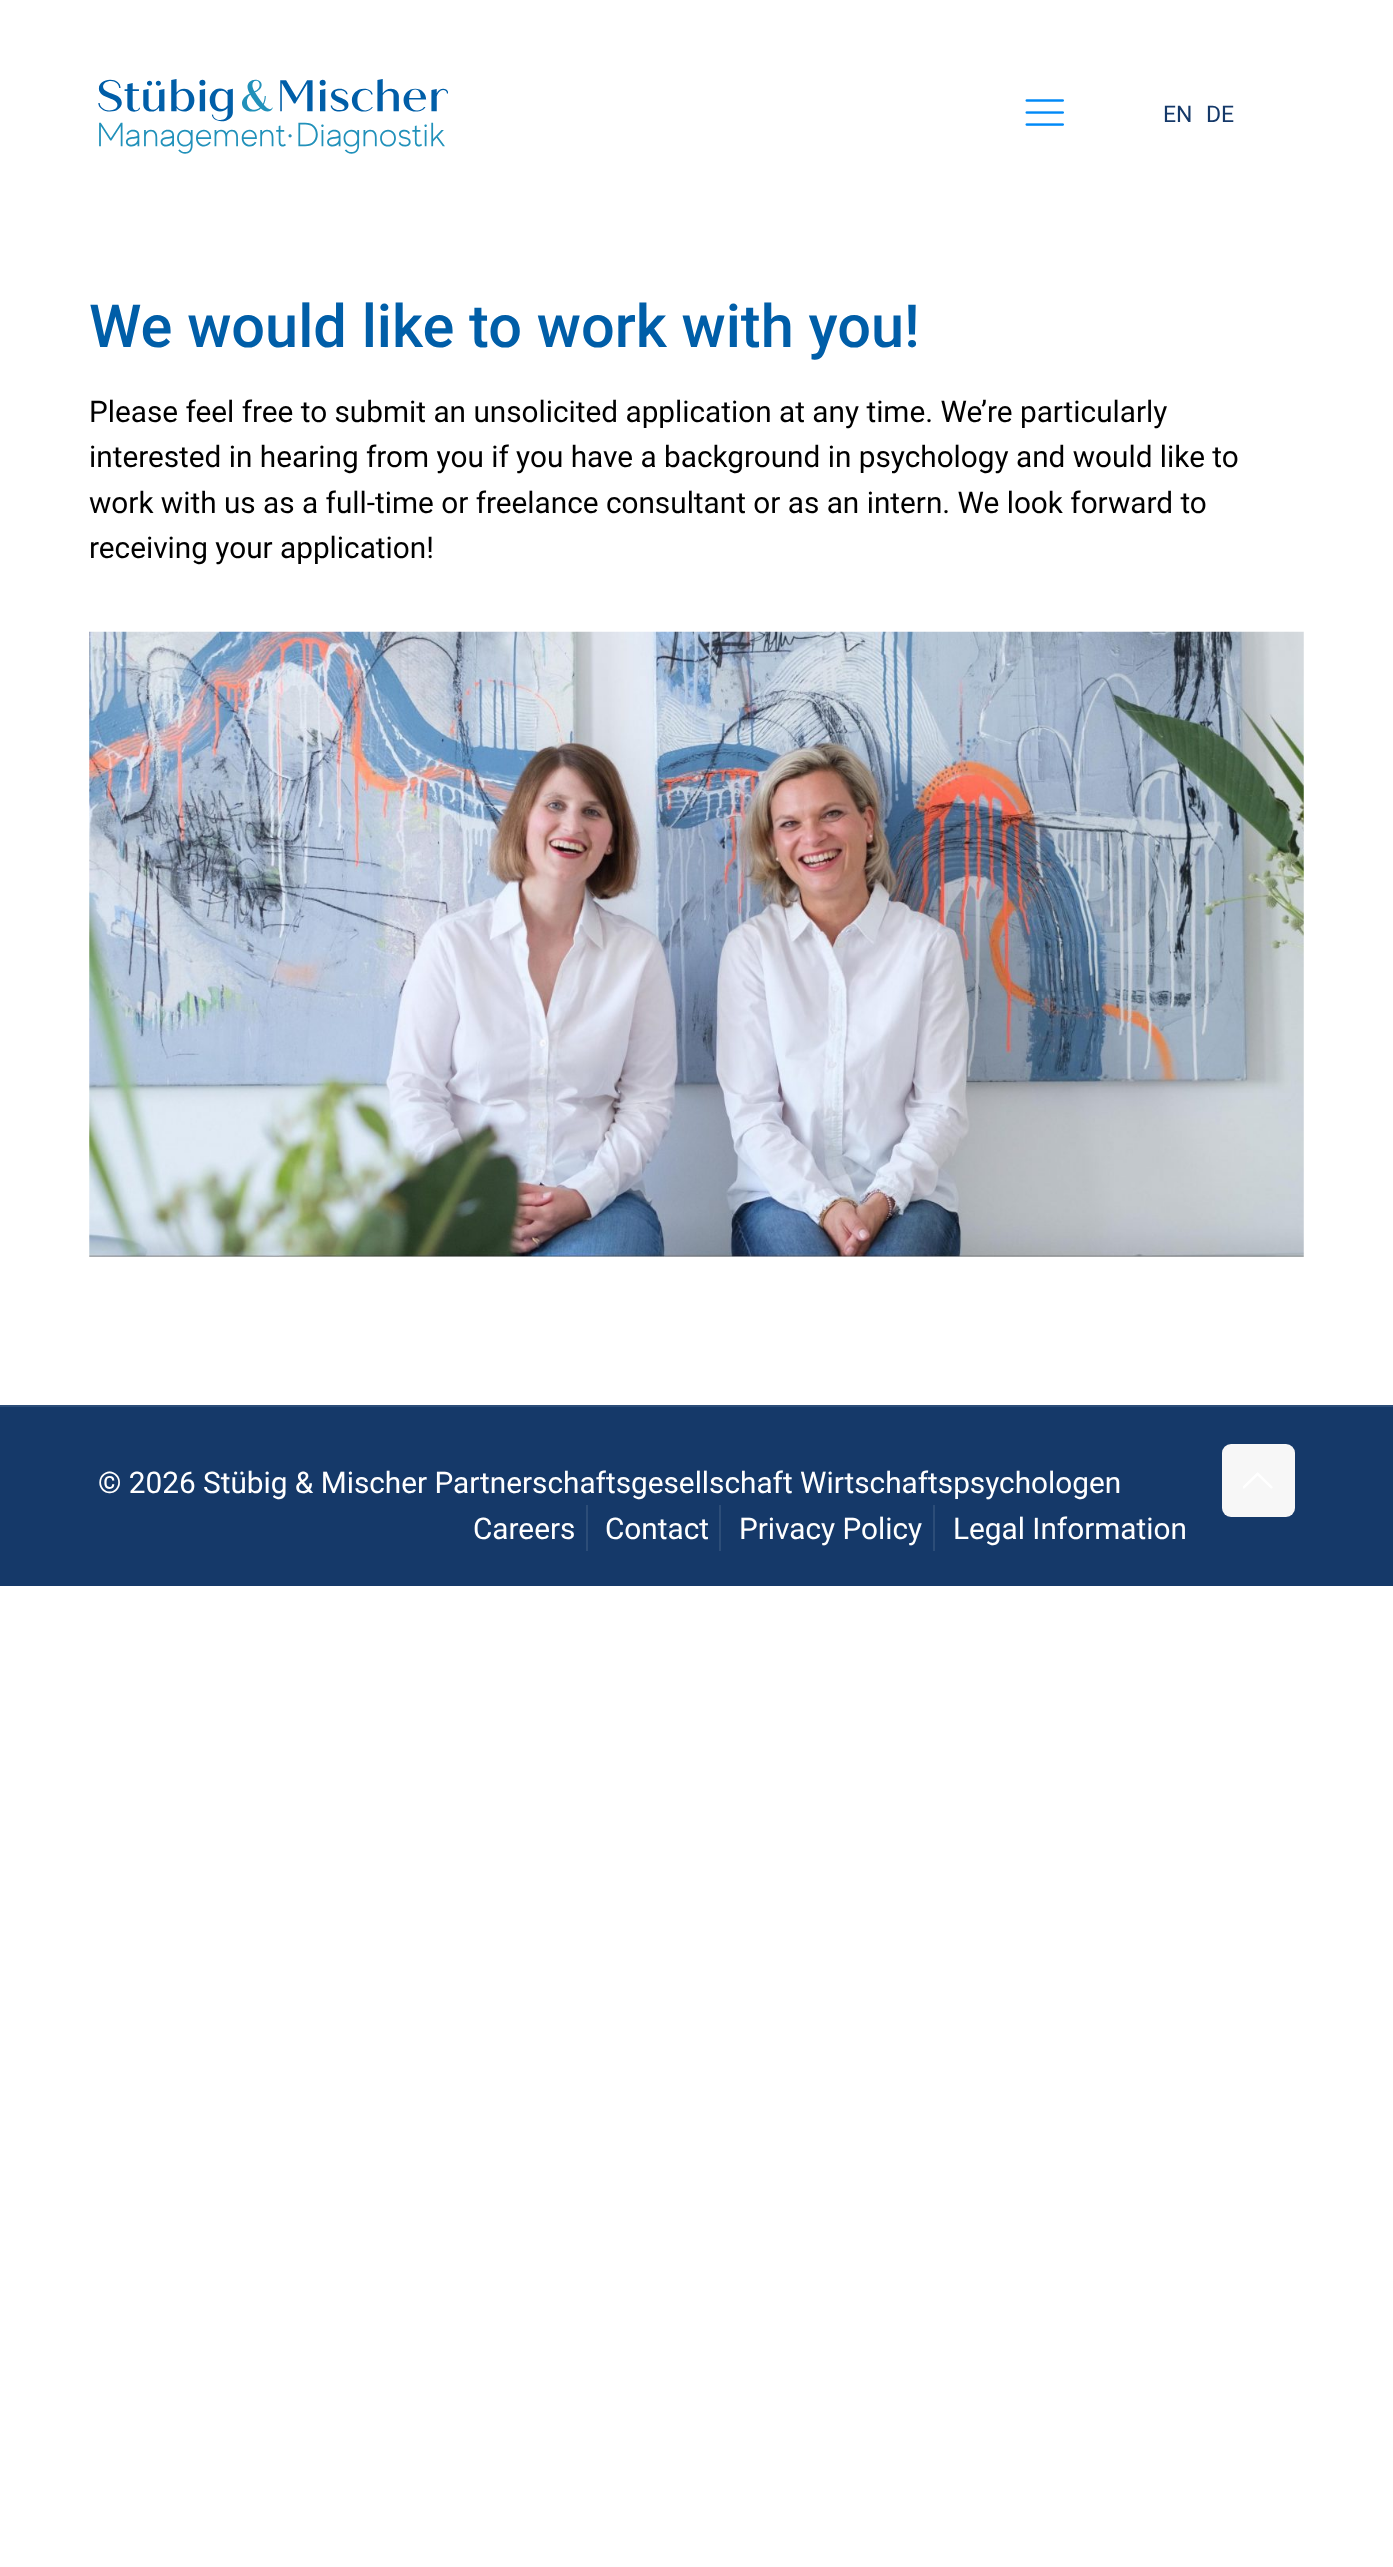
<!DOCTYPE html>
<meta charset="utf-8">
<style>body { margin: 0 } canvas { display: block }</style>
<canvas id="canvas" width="1393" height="2567"></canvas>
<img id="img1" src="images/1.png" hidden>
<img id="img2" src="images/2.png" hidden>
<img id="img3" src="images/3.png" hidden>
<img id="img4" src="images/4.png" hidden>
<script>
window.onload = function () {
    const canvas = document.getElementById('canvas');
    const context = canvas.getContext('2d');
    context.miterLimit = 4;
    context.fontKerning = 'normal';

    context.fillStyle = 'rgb(255, 255, 255)';
    context.fillRect(0, 0, 1393, 2567);
    context.drawImage(document.getElementById('img1'), 98, 79, 350, 75);
    context.drawImage(document.getElementById('img2'), 1025, 99, 39, 27);
    context.drawImage(document.getElementById('img3'), 89, 631, 1215, 626);
    context.fillStyle = 'rgb(21, 57, 105)';
    context.fillRect(0, 1407, 1393, 179);
    context.fillStyle = 'rgb(44, 77, 120)';
    context.fillRect(0, 1405, 1393, 2);
    context.fillStyle = 'rgb(247, 247, 247)';
    context.beginPath();
    context.roundRect(1222, 1444, 73, 73, 9);
    context.fill();
    context.drawImage(document.getElementById('img4'), 1243, 1472, 30, 17);
    context.fillStyle = 'rgb(44, 77, 120)';
    context.fillRect(586, 1505, 2, 46);
    context.fillRect(719, 1505, 2, 46);
    context.fillRect(933, 1505, 2, 46);
    context.font = '23px Roboto';
    context.fillStyle = 'rgb(21, 57, 105)';
    context.fillText('EN', 1163, 122);
    context.fillText('DE', 1206, 122);
    context.font = '500 59.5px Roboto';
    context.fillStyle = 'rgb(0, 94, 168)';
    context.fillText('We would like to work with you!', 89, 347);
    context.font = '29.75px Roboto';
    context.fillStyle = 'rgb(0, 0, 0)';
    context.fillText('Please feel free to submit an unsolicited application at any time. We’re particularly', 89, 422);
    context.fillText('interested in hearing from you if you have a background in psychology and would like to', 89, 467);
    context.fillText('work with us as a full-time or freelance consultant or as an intern. We look forward to', 89, 513);
    context.fillText('receiving your application!', 89, 558);
    context.fillStyle = 'rgb(255, 255, 255)';
    context.fillText('© 2026 Stübig & Mischer Partnerschaftsgesellschaft Wirtschaftspsychologen', 98, 1493);
    context.fillText('Careers', 473, 1539);
    context.fillText('Contact', 605, 1539);
    context.fillText('Privacy Policy', 739, 1539);
    context.fillText('Legal Information', 953, 1539);
};
</script>
